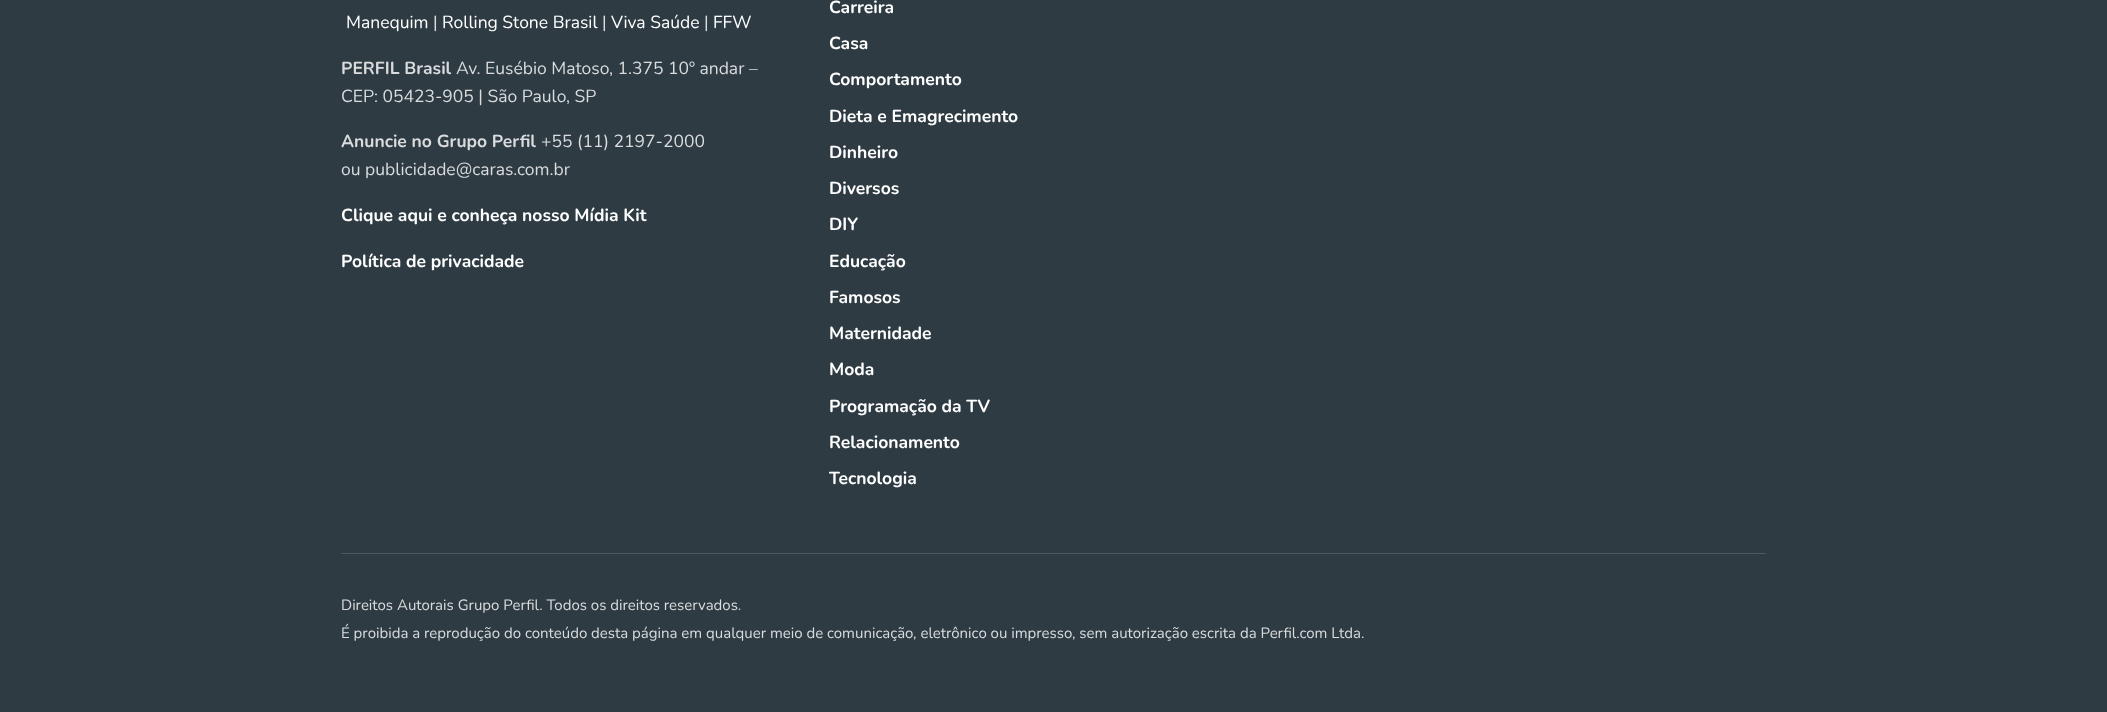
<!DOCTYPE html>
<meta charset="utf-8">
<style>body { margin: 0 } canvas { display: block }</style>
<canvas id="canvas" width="2107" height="712"></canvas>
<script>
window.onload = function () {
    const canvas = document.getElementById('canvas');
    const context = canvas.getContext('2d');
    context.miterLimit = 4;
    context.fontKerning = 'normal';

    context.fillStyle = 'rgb(46, 59, 67)';
    context.fillRect(0, 0, 2107, 712);
    context.fillStyle = 'rgb(77, 88, 95)';
    context.fillRect(341, 553, 1425, 1);
    context.font = '17.5px Nunito';
    context.fillStyle = 'rgb(255, 255, 255)';
    context.fillText('Manequim', 346, 28);
    context.fillStyle = 'rgb(217, 219, 220)';
    context.fillText('|', 433, 28);
    context.fillStyle = 'rgb(255, 255, 255)';
    context.fillText('Rolling Stone Brasil', 442, 28);
    context.fillStyle = 'rgb(217, 219, 220)';
    context.fillText('|', 602, 28);
    context.fillStyle = 'rgb(255, 255, 255)';
    context.fillText('Viva Saúde', 611, 28);
    context.fillStyle = 'rgb(217, 219, 220)';
    context.fillText('|', 704, 28);
    context.fillStyle = 'rgb(255, 255, 255)';
    context.fillText('FFW', 713, 28);
    context.font = 'bold 17.5px Nunito';
    context.fillStyle = 'rgb(217, 219, 220)';
    context.fillText('PERFIL Brasil', 341, 74);
    context.font = '17.5px Nunito';
    context.fillText('Av. Eusébio Matoso, 1.375 10º andar –', 456, 74);
    context.fillText('CEP: 05423-905 | São Paulo, SP', 341, 102);
    context.font = 'bold 17.5px Nunito';
    context.fillText('Anuncie no Grupo Perfil', 341, 147);
    context.font = '17.5px Nunito';
    context.fillText('+55 (11) 2197-2000', 541, 147);
    context.fillText('ou publicidade@caras.com.br', 341, 175);
    context.font = 'bold 17.5px Nunito';
    context.fillStyle = 'rgb(255, 255, 255)';
    context.fillText('Clique aqui e conheça nosso Mídia Kit', 341, 221);
    context.fillText('Política de privacidade', 341, 267);
    context.fillText('Carreira', 829, 13);
    context.fillText('Casa', 829, 49);
    context.fillText('Comportamento', 829, 85);
    context.fillText('Dieta e Emagrecimento', 829, 122);
    context.fillText('Dinheiro', 829, 158);
    context.fillText('Diversos', 829, 194);
    context.fillText('DIY', 829, 230);
    context.fillText('Educação', 829, 267);
    context.fillText('Famosos', 829, 303);
    context.fillText('Maternidade', 829, 339);
    context.fillText('Moda', 829, 375);
    context.fillText('Programação da TV', 829, 412);
    context.fillText('Relacionamento', 829, 448);
    context.fillText('Tecnologia', 829, 484);
    context.font = '15px Nunito';
    context.fillStyle = 'rgb(217, 219, 220)';
    context.fillText('Direitos Autorais Grupo Perfil. Todos os direitos reservados.', 341, 610);
    context.fillText('É proibida a reprodução do conteúdo desta página em qualquer meio de comunicação, eletrônico ou impresso, sem autorização escrita da Perfil.com Ltda.', 341, 638);
};
</script>
